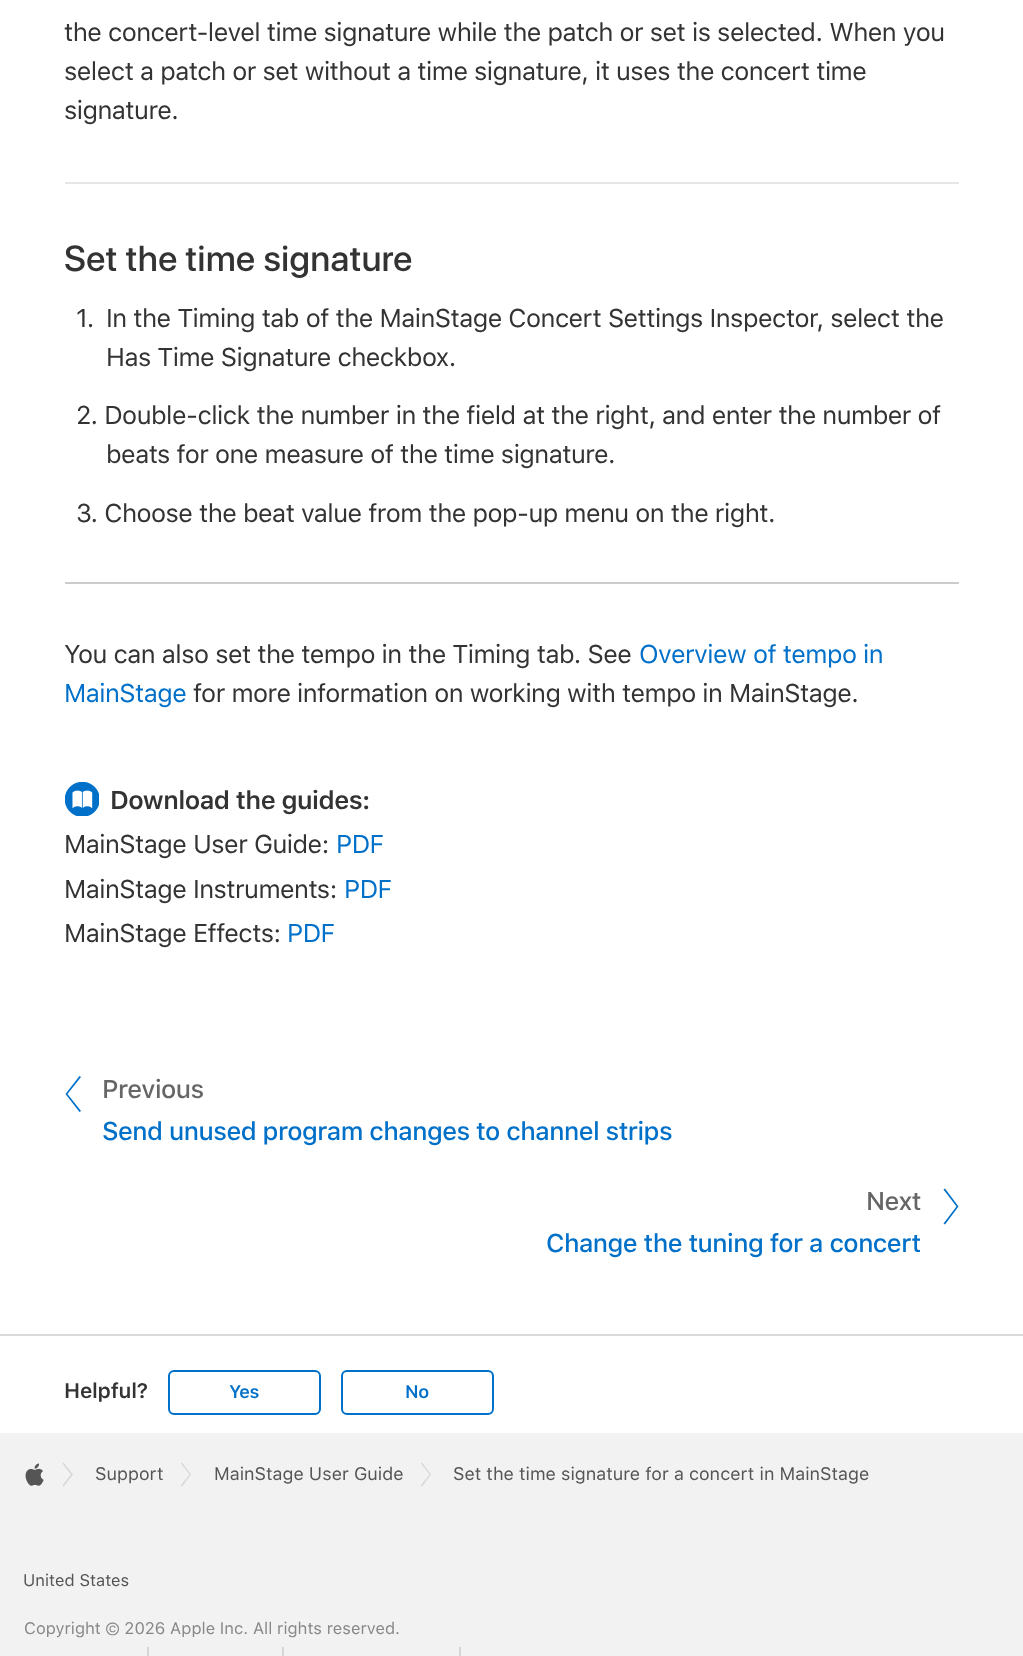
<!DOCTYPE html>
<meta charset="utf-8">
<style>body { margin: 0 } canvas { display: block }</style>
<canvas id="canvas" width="1023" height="1656"></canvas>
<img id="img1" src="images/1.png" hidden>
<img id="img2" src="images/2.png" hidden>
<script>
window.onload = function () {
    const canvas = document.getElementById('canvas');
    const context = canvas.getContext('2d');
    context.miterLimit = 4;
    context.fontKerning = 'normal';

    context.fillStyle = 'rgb(255, 255, 255)';
    context.fillRect(0, 0, 1023, 1656);
    context.fillStyle = 'rgb(230, 230, 230)';
    context.fillRect(65, 182, 894, 2);
    context.fillStyle = 'rgb(204, 204, 204)';
    context.fillRect(65, 582, 894, 2);
    context.drawImage(document.getElementById('img1'), 65, 782, 34, 34);
    context.fillStyle = 'rgb(0, 112, 201)';
    context.beginPath();
    context.moveTo(79.5, 1076);
    context.lineTo(65.5, 1094);
    context.lineTo(79.5, 1112);
    context.lineTo(81, 1111);
    context.lineTo(67.5, 1094);
    context.lineTo(81, 1077);
    context.closePath();
    context.fill();
    context.beginPath();
    context.moveTo(943.5, 1189.5);
    context.lineTo(956.5, 1206.5);
    context.lineTo(943.5, 1223.5);
    context.lineTo(945, 1224.5);
    context.lineTo(958.5, 1206.5);
    context.lineTo(945, 1188.5);
    context.closePath();
    context.fill();
    context.fillStyle = 'rgb(217, 217, 217)';
    context.fillRect(0, 1334, 1023, 2);
    context.beginPath();
    context.roundRect(169, 1371, 151, 43, 5);
    context.strokeStyle = 'rgb(0, 112, 201)';
    context.lineWidth = 2;
    context.stroke();
    context.beginPath();
    context.roundRect(342, 1371, 151, 43, 5);
    context.stroke();
    context.fillStyle = 'rgb(242, 242, 242)';
    context.fillRect(0, 1433, 1023, 223);
    context.drawImage(document.getElementById('img2'), 25, 1463, 19, 23);
    context.fillStyle = 'rgb(214, 214, 214)';
    context.beginPath();
    context.moveTo(63.5, 1462.5);
    context.lineTo(73, 1474.5);
    context.lineTo(63.5, 1486.5);
    context.lineTo(62.5, 1485.5);
    context.lineTo(71, 1474.5);
    context.lineTo(62.5, 1463.5);
    context.closePath();
    context.fill();
    context.beginPath();
    context.moveTo(182, 1462.5);
    context.lineTo(191, 1474.5);
    context.lineTo(182, 1486.5);
    context.lineTo(181, 1485.5);
    context.lineTo(189.5, 1474.5);
    context.lineTo(181, 1463.5);
    context.closePath();
    context.fill();
    context.beginPath();
    context.moveTo(422, 1462.5);
    context.lineTo(431, 1474.5);
    context.lineTo(422, 1486.5);
    context.lineTo(421, 1485.5);
    context.lineTo(429.5, 1474.5);
    context.lineTo(421, 1463.5);
    context.closePath();
    context.fill();
    context.fillRect(147, 1647, 2, 9);
    context.fillRect(282, 1647, 2, 9);
    context.fillRect(459, 1647, 2, 9);
    context.letterSpacing = '-0.55px';
    context.font = '25.5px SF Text';
    context.fillStyle = 'rgb(51, 51, 51)';
    context.fillText('the concert-level time signature while the patch or set is selected. When you', 64, 41);
    context.fillText('select a patch or set without a time signature, it uses the concert time', 64, 80);
    context.fillText('signature.', 64, 119);
    context.letterSpacing = '0.5px';
    context.font = '500 36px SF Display';
    context.fillText('Set the time signature', 64, 271);
    context.letterSpacing = '-0.55px';
    context.font = '25.5px SF Text';
    context.fillText('1.', 76, 327);
    context.fillText('In the Timing tab of the MainStage Concert Settings Inspector, select the', 106, 327);
    context.fillText('Has Time Signature checkbox.', 106, 366);
    context.fillText('2. Double-click the number in the field at the right, and enter the number of', 76, 424);
    context.fillText('beats for one measure of the time signature.', 106, 463);
    context.fillText('3. Choose the beat value from the pop-up menu on the right.', 76, 522);
    context.fillText('You can also set the tempo in the Timing tab. See', 64, 663);
    context.fillStyle = 'rgb(0, 112, 201)';
    context.fillText('Overview of tempo in', 639, 663);
    context.fillText('MainStage', 64, 702);
    context.fillStyle = 'rgb(51, 51, 51)';
    context.fillText('for more information on working with tempo in MainStage.', 193, 702);
    context.font = '600 25.5px SF Text';
    context.fillText('Download the guides:', 110, 809);
    context.font = '25.5px SF Text';
    context.fillText('MainStage User Guide:', 64, 853);
    context.fillStyle = 'rgb(0, 112, 201)';
    context.fillText('PDF', 336, 853);
    context.fillStyle = 'rgb(51, 51, 51)';
    context.fillText('MainStage Instruments:', 64, 898);
    context.fillStyle = 'rgb(0, 112, 201)';
    context.fillText('PDF', 344, 898);
    context.fillStyle = 'rgb(51, 51, 51)';
    context.fillText('MainStage Effects:', 64, 942);
    context.fillStyle = 'rgb(0, 112, 201)';
    context.fillText('PDF', 287, 942);
    context.font = '500 25.5px SF Text';
    context.fillStyle = 'rgb(102, 102, 102)';
    context.fillText('Previous', 102, 1098);
    context.fillStyle = 'rgb(0, 112, 201)';
    context.fillText('Send unused program changes to channel strips', 102, 1140);
    context.fillStyle = 'rgb(102, 102, 102)';
    context.fillText('Next', 866, 1210);
    context.fillStyle = 'rgb(0, 112, 201)';
    context.fillText('Change the tuning for a concert', 546, 1252);
    context.letterSpacing = '-0.25px';
    context.font = '600 21px SF Text';
    context.fillStyle = 'rgb(51, 51, 51)';
    context.fillText('Helpful?', 64, 1398);
    context.letterSpacing = '-0.5px';
    context.font = '600 18px SF Text';
    context.fillStyle = 'rgb(0, 112, 201)';
    context.fillText('Yes', 229, 1398);
    context.fillText('No', 405, 1398);
    context.letterSpacing = '0px';
    context.font = '18px SF Text';
    context.fillStyle = 'rgb(85, 85, 85)';
    context.fillText('Support', 95, 1480);
    context.fillText('MainStage User Guide', 214, 1480);
    context.fillText('Set the time signature for a concert in MainStage', 453, 1480);
    context.font = '16.6px SF Text';
    context.fillText('United States', 23, 1586);
    context.fillStyle = 'rgb(136, 136, 136)';
    context.fillText('Copyright © 2026 Apple Inc. All rights reserved.', 24, 1634);
};
</script>
